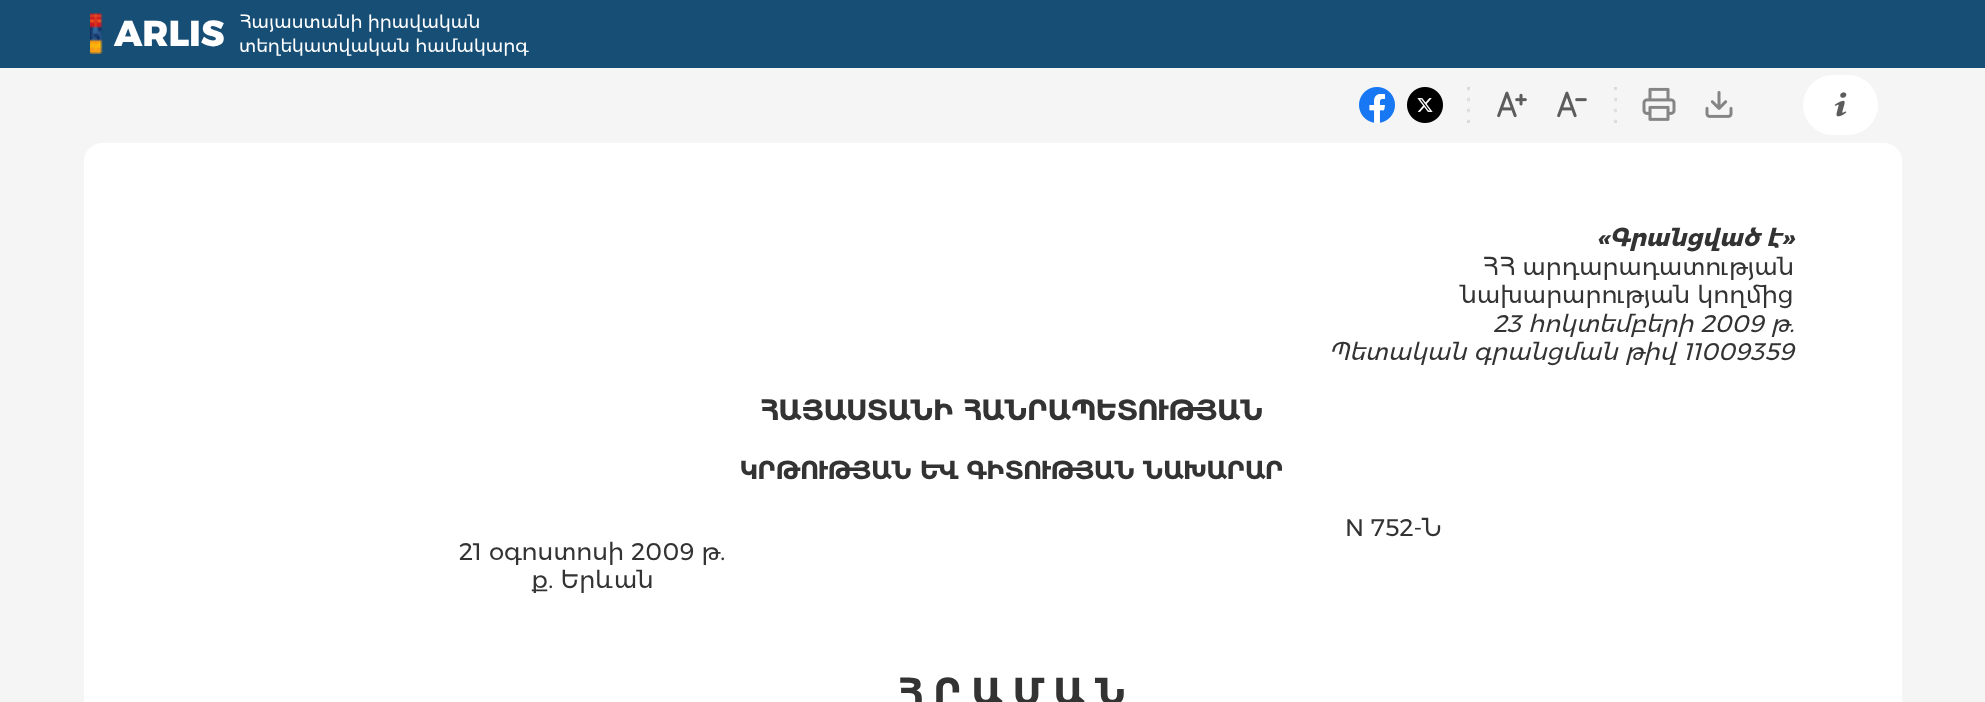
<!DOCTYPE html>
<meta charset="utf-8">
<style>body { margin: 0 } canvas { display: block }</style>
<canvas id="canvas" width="1985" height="702"></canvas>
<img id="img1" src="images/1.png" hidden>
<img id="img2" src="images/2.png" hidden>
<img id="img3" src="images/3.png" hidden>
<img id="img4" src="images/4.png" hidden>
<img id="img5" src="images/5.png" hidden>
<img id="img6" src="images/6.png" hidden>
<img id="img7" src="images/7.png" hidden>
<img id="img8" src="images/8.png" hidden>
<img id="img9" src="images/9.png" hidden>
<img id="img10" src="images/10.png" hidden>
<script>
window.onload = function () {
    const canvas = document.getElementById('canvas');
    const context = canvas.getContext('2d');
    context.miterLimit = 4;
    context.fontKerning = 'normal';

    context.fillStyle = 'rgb(23, 78, 117)';
    context.fillRect(0, 0, 1985, 702);
    context.drawImage(document.getElementById('img1'), 90, 13, 13, 41);
    context.fillStyle = 'rgb(245, 245, 245)';
    context.fillRect(0, 68, 1985, 634);
    context.drawImage(document.getElementById('img2'), 1359, 87, 36, 36);
    context.drawImage(document.getElementById('img3'), 1407, 87, 36, 36);
    context.drawImage(document.getElementById('img4'), 1467, 87, 3, 36);
    context.drawImage(document.getElementById('img5'), 1497, 91, 30, 27);
    context.drawImage(document.getElementById('img6'), 1557, 91, 30, 27);
    context.drawImage(document.getElementById('img7'), 1614, 87, 3, 36);
    context.drawImage(document.getElementById('img8'), 1642, 87, 34, 34);
    context.drawImage(document.getElementById('img9'), 1705, 91, 28, 27);
    context.fillStyle = 'rgb(255, 255, 255)';
    context.beginPath();
    context.roundRect(1803, 75, 75, 60, 30);
    context.fill();
    context.drawImage(document.getElementById('img10'), 1834, 92, 13, 25);
    context.beginPath();
    context.moveTo(102, 143);
    context.lineTo(1884, 143);
    context.bezierCurveTo(1894, 143, 1902, 151, 1902, 161);
    context.lineTo(1902, 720);
    context.lineTo(84, 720);
    context.lineTo(84, 161);
    context.bezierCurveTo(84, 151, 92, 143, 102, 143);
    context.closePath();
    context.fill();
    context.font = '800 36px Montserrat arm';
    context.fillText('ARLIS', 114, 46);
    context.font = '18px Montserrat arm';
    context.fillText('Հայաստանի իրավական', 239, 28);
    context.fillText('տեղեկատվական համակարգ', 239, 52);
    context.font = 'italic bold 24px Montserrat arm';
    context.fillStyle = 'rgb(51, 51, 51)';
    context.fillText('«Գրանցված է»', 1597, 246);
    context.font = '24px Montserrat arm';
    context.fillText('ՀՀ արդարադատության', 1482, 275);
    context.fillText('նախարարության կողմից', 1461, 303);
    context.font = 'italic 24px Montserrat arm';
    context.fillText('23 հոկտեմբերի 2009 թ.', 1493, 332);
    context.fillText('Պետական գրանցման թիվ 11009359', 1328, 360);
    context.wordSpacing = '1px';
    context.font = 'bold 27px Montserrat arm';
    context.fillText('ՀԱՅԱՍՏԱՆԻ ՀԱՆՐԱՊԵՏՈՒԹՅԱՆ', 760, 420);
    context.font = 'bold 24px Montserrat arm';
    context.fillText('ԿՐԹՈՒԹՅԱՆ ԵՎ ԳԻՏՈՒԹՅԱՆ ՆԱԽԱՐԱՐ', 740, 479);
    context.wordSpacing = '0px';
    context.font = '24px Montserrat arm';
    context.fillText('N 752-Ն', 1345, 536);
    context.fillText('21 օգոստոսի 2009 թ.', 459, 560);
    context.fillText('ք. Երևան', 531, 588);
    context.font = 'bold 36px Montserrat arm';
    context.fillText('Հ Ր Ա Մ Ա Ն', 898, 705);
};
</script>
